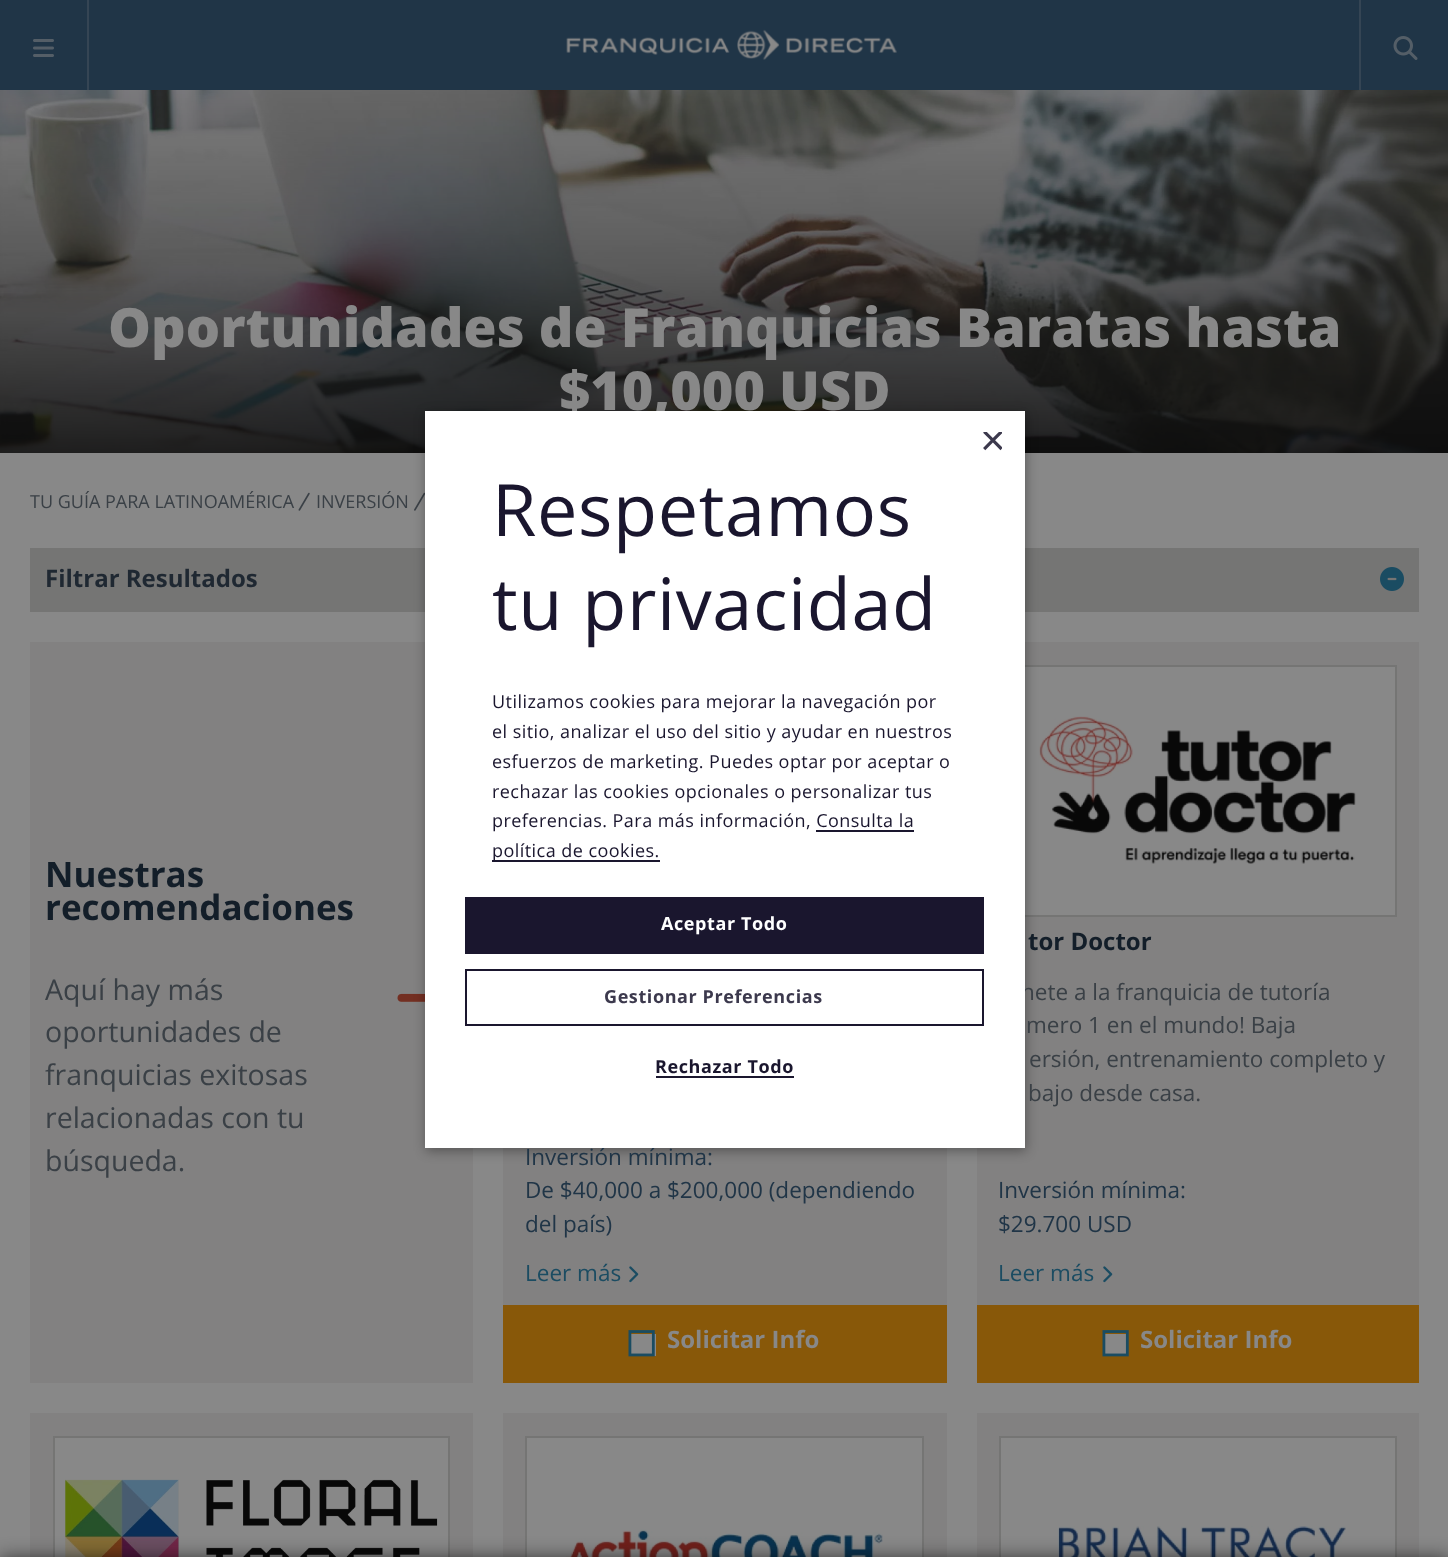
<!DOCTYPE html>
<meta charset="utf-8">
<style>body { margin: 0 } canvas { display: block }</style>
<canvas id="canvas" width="1448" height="1557"></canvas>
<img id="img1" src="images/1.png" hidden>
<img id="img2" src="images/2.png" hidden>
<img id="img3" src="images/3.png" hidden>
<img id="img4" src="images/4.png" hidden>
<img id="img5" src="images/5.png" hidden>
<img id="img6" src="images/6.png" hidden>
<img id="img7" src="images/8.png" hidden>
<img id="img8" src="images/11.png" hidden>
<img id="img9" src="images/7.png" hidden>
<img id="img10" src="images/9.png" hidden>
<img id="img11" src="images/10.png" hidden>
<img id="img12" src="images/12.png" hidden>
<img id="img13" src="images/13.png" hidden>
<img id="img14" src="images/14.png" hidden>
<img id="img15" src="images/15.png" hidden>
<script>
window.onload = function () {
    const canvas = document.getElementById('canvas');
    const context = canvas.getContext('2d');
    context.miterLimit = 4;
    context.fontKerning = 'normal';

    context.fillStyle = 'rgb(136, 136, 136)';
    context.fillRect(0, 0, 1448, 1557);
    context.fillStyle = 'rgb(32, 53, 71)';
    context.fillRect(0, 0, 1448, 90);
    context.fillStyle = 'rgb(53, 69, 84)';
    context.fillRect(87, 0, 2, 90);
    context.drawImage(document.getElementById('img1'), 33, 39, 21, 18);
    context.drawImage(document.getElementById('img2'), 566, 29, 331, 31);
    context.fillRect(1359, 0, 2, 90);
    context.drawImage(document.getElementById('img3'), 1393, 36, 25, 24);
    context.drawImage(document.getElementById('img4'), 0, 90, 1448, 363);
    context.drawImage(document.getElementById('img5'), 298, 492, 12, 19);
    context.drawImage(document.getElementById('img6'), 414, 492, 11, 19);
    context.fillStyle = 'rgb(117, 117, 116)';
    context.fillRect(30, 548, 1389, 64);
    context.fillStyle = 'rgb(130, 129, 129)';
    context.fillRect(30, 642, 443, 741);
    context.drawImage(document.getElementById('img7'), 397, 993, 28, 9);
    context.fillRect(503, 1148, 444, 157);
    context.fillRect(977, 642, 442, 663);
    context.fillStyle = 'rgb(136, 136, 136)';
    context.fillRect(1025, 667, 370, 248);
    context.strokeStyle = 'rgb(117, 117, 116)';
    context.lineWidth = 2;
    context.strokeRect(1000, 666, 396, 250);
    context.drawImage(document.getElementById('img8'), 1039, 716, 317, 148);
    context.fillStyle = 'rgba(0, 0, 0, 0.35)';
    context.filter = 'blur(6px)';
    context.beginPath();
    context.rect(426, 414, 600, 737);
    context.fill();
    context.filter = 'none';
    context.drawImage(document.getElementById('img9'), 1380, 567, 24, 24);
    context.drawImage(document.getElementById('img10'), 629, 1266, 10, 17);
    context.fillStyle = 'rgb(136, 88, 9)';
    context.fillRect(503, 1305, 444, 78);
    context.fillStyle = 'rgb(136, 136, 136)';
    context.fillRect(631, 1334, 25, 22);
    context.drawImage(document.getElementById('img11'), 628, 1330, 27, 27);
    context.drawImage(document.getElementById('img10'), 1103, 1266, 10, 17);
    context.fillStyle = 'rgb(136, 88, 9)';
    context.fillRect(977, 1305, 442, 78);
    context.fillStyle = 'rgb(136, 136, 136)';
    context.fillRect(1105, 1334, 21, 20);
    context.drawImage(document.getElementById('img12'), 1102, 1330, 27, 27);
    context.fillStyle = 'rgb(130, 129, 129)';
    context.fillRect(30, 1413, 443, 144);
    context.fillStyle = 'rgb(136, 136, 136)';
    context.beginPath();
    context.rect(54, 1437, 395, 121);
    context.fill();
    context.stroke();
    context.drawImage(document.getElementById('img13'), 65, 1479, 373, 78);
    context.fillStyle = 'rgb(130, 129, 129)';
    context.fillRect(503, 1413, 444, 144);
    context.fillStyle = 'rgb(136, 136, 136)';
    context.beginPath();
    context.rect(526, 1437, 397, 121);
    context.fill();
    context.stroke();
    context.drawImage(document.getElementById('img14'), 566, 1529, 317, 28);
    context.fillStyle = 'rgb(130, 129, 129)';
    context.fillRect(977, 1413, 442, 144);
    context.fillStyle = 'rgb(136, 136, 136)';
    context.beginPath();
    context.rect(1000, 1437, 396, 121);
    context.fill();
    context.stroke();
    context.drawImage(document.getElementById('img15'), 1058, 1526, 288, 31);
    context.fillStyle = 'rgba(9, 9, 9, 0.6)';
    context.filter = 'blur(9px)';
    context.beginPath();
    context.rect(0, 1557, 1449, 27);
    context.fill();
    context.filter = 'none';
    context.font = '800 54px Open Sans';
    context.fillStyle = 'rgb(136, 136, 136)';
    context.fillText('Oportunidades de Franquicias Baratas hasta', 108, 347);
    context.fillText('$10,000 USD', 559, 410);
    context.font = '18px Open Sans';
    context.fillStyle = 'rgb(58, 64, 70)';
    context.fillText('TU GUÍA PARA LATINOAMÉRICA', 30, 508);
    context.fillText('INVERSIÓN', 316, 508);
    context.font = 'bold 24px Open Sans';
    context.fillStyle = 'rgb(31, 40, 50)';
    context.fillText('Filtrar Resultados', 45, 587);
    context.font = 'bold 35px Open Sans';
    context.fillStyle = 'rgb(19, 30, 41)';
    context.fillText('Nuestras', 45, 887);
    context.fillText('recomendaciones', 45, 920);
    context.font = '28.5px Open Sans';
    context.fillStyle = 'rgb(58, 64, 70)';
    context.fillText('Aquí hay más', 45, 1000);
    context.fillText('oportunidades de', 45, 1042);
    context.fillText('franquicias exitosas', 45, 1085);
    context.fillText('relacionadas con tu', 45, 1128);
    context.fillText('búsqueda.', 45, 1171);
    context.font = '22.5px Open Sans';
    context.fillStyle = 'rgb(32, 53, 71)';
    context.fillText('Inversión mínima:', 525, 1165);
    context.fillText('De $40,000 a $200,000 (dependiendo', 525, 1198);
    context.fillText('del país)', 525, 1232);
    context.fillStyle = 'rgb(27, 76, 98)';
    context.fillText('Leer más', 525, 1281);
    context.font = 'bold 24px Open Sans';
    context.fillStyle = 'rgb(136, 136, 136)';
    context.fillText('Solicitar Info', 667, 1348);
    context.fillStyle = 'rgb(19, 30, 41)';
    context.fillText('tor Doctor', 1028, 950);
    context.font = '22.5px Open Sans';
    context.fillStyle = 'rgb(58, 64, 70)';
    context.fillText('nete a la franquicia de tutoría', 1021, 1000);
    context.fillStyle = 'rgb(255, 255, 255)';
    context.fillRect(425, 411, 600, 737);
    context.save();
    context.beginPath();
    context.rect(980, 432, 22, 23);
    context.clip();
    context.font = '44px Liberation Sans';
    context.fillStyle = 'rgb(60, 57, 77)';
    context.fillText('×', 980, 455);
    context.restore();
    context.letterSpacing = '0.6px';
    context.font = '72px Open Sans';
    context.fillStyle = 'rgb(26, 22, 46)';
    context.fillText('tu privacidad', 492, 630);
    context.fillText('Respetamos', 492, 536);
    context.strokeStyle = 'rgb(26, 22, 46)';
    context.strokeRect(466, 970, 517, 55);
    context.font = 'bold 18px Open Sans';
    context.fillStyle = 'rgb(60, 57, 77)';
    context.fillText('Gestionar Preferencias', 604, 1003);
    context.fillStyle = 'rgb(26, 22, 46)';
    context.fillText('Rechazar Todo', 655, 1073);
    context.fillRect(656, 1076, 138, 2);
    context.fillRect(465, 897, 519, 57);
    context.fillStyle = 'rgb(255, 255, 255)';
    context.fillText('Aceptar Todo', 661, 930);
    context.fillStyle = 'rgb(26, 22, 46)';
    context.fillRect(492, 860, 168, 2);
    context.letterSpacing = '0.45px';
    context.font = '18px Open Sans';
    context.fillText('política de cookies.', 492, 857);
    context.fillRect(816, 830, 98, 2);
    context.fillText('preferencias. Para más información, Consulta la', 492, 827);
    context.fillText('rechazar las cookies opcionales o personalizar tus', 492, 798);
    context.fillText('esfuerzos de marketing. Puedes optar por aceptar o', 492, 768);
    context.fillText('el sitio, analizar el uso del sitio y ayudar en nuestros', 492, 738);
    context.fillText('Utilizamos cookies para mejorar la navegación por', 492, 708);
    context.letterSpacing = '0px';
    context.font = '22.5px Open Sans';
    context.fillStyle = 'rgb(58, 64, 70)';
    context.fillText('mero 1 en el mundo! Baja', 1026, 1033);
    context.fillText('ersión, entrenamiento completo y', 1029, 1067);
    context.fillText('bajo desde casa.', 1028, 1101);
    context.fillStyle = 'rgb(32, 53, 71)';
    context.fillText('Inversión mínima:', 998, 1198);
    context.fillText('$29.700 USD', 998, 1232);
    context.fillStyle = 'rgb(27, 76, 98)';
    context.fillText('Leer más', 998, 1281);
    context.font = 'bold 24px Open Sans';
    context.fillStyle = 'rgb(136, 136, 136)';
    context.fillText('Solicitar Info', 1140, 1348);
};
</script>
